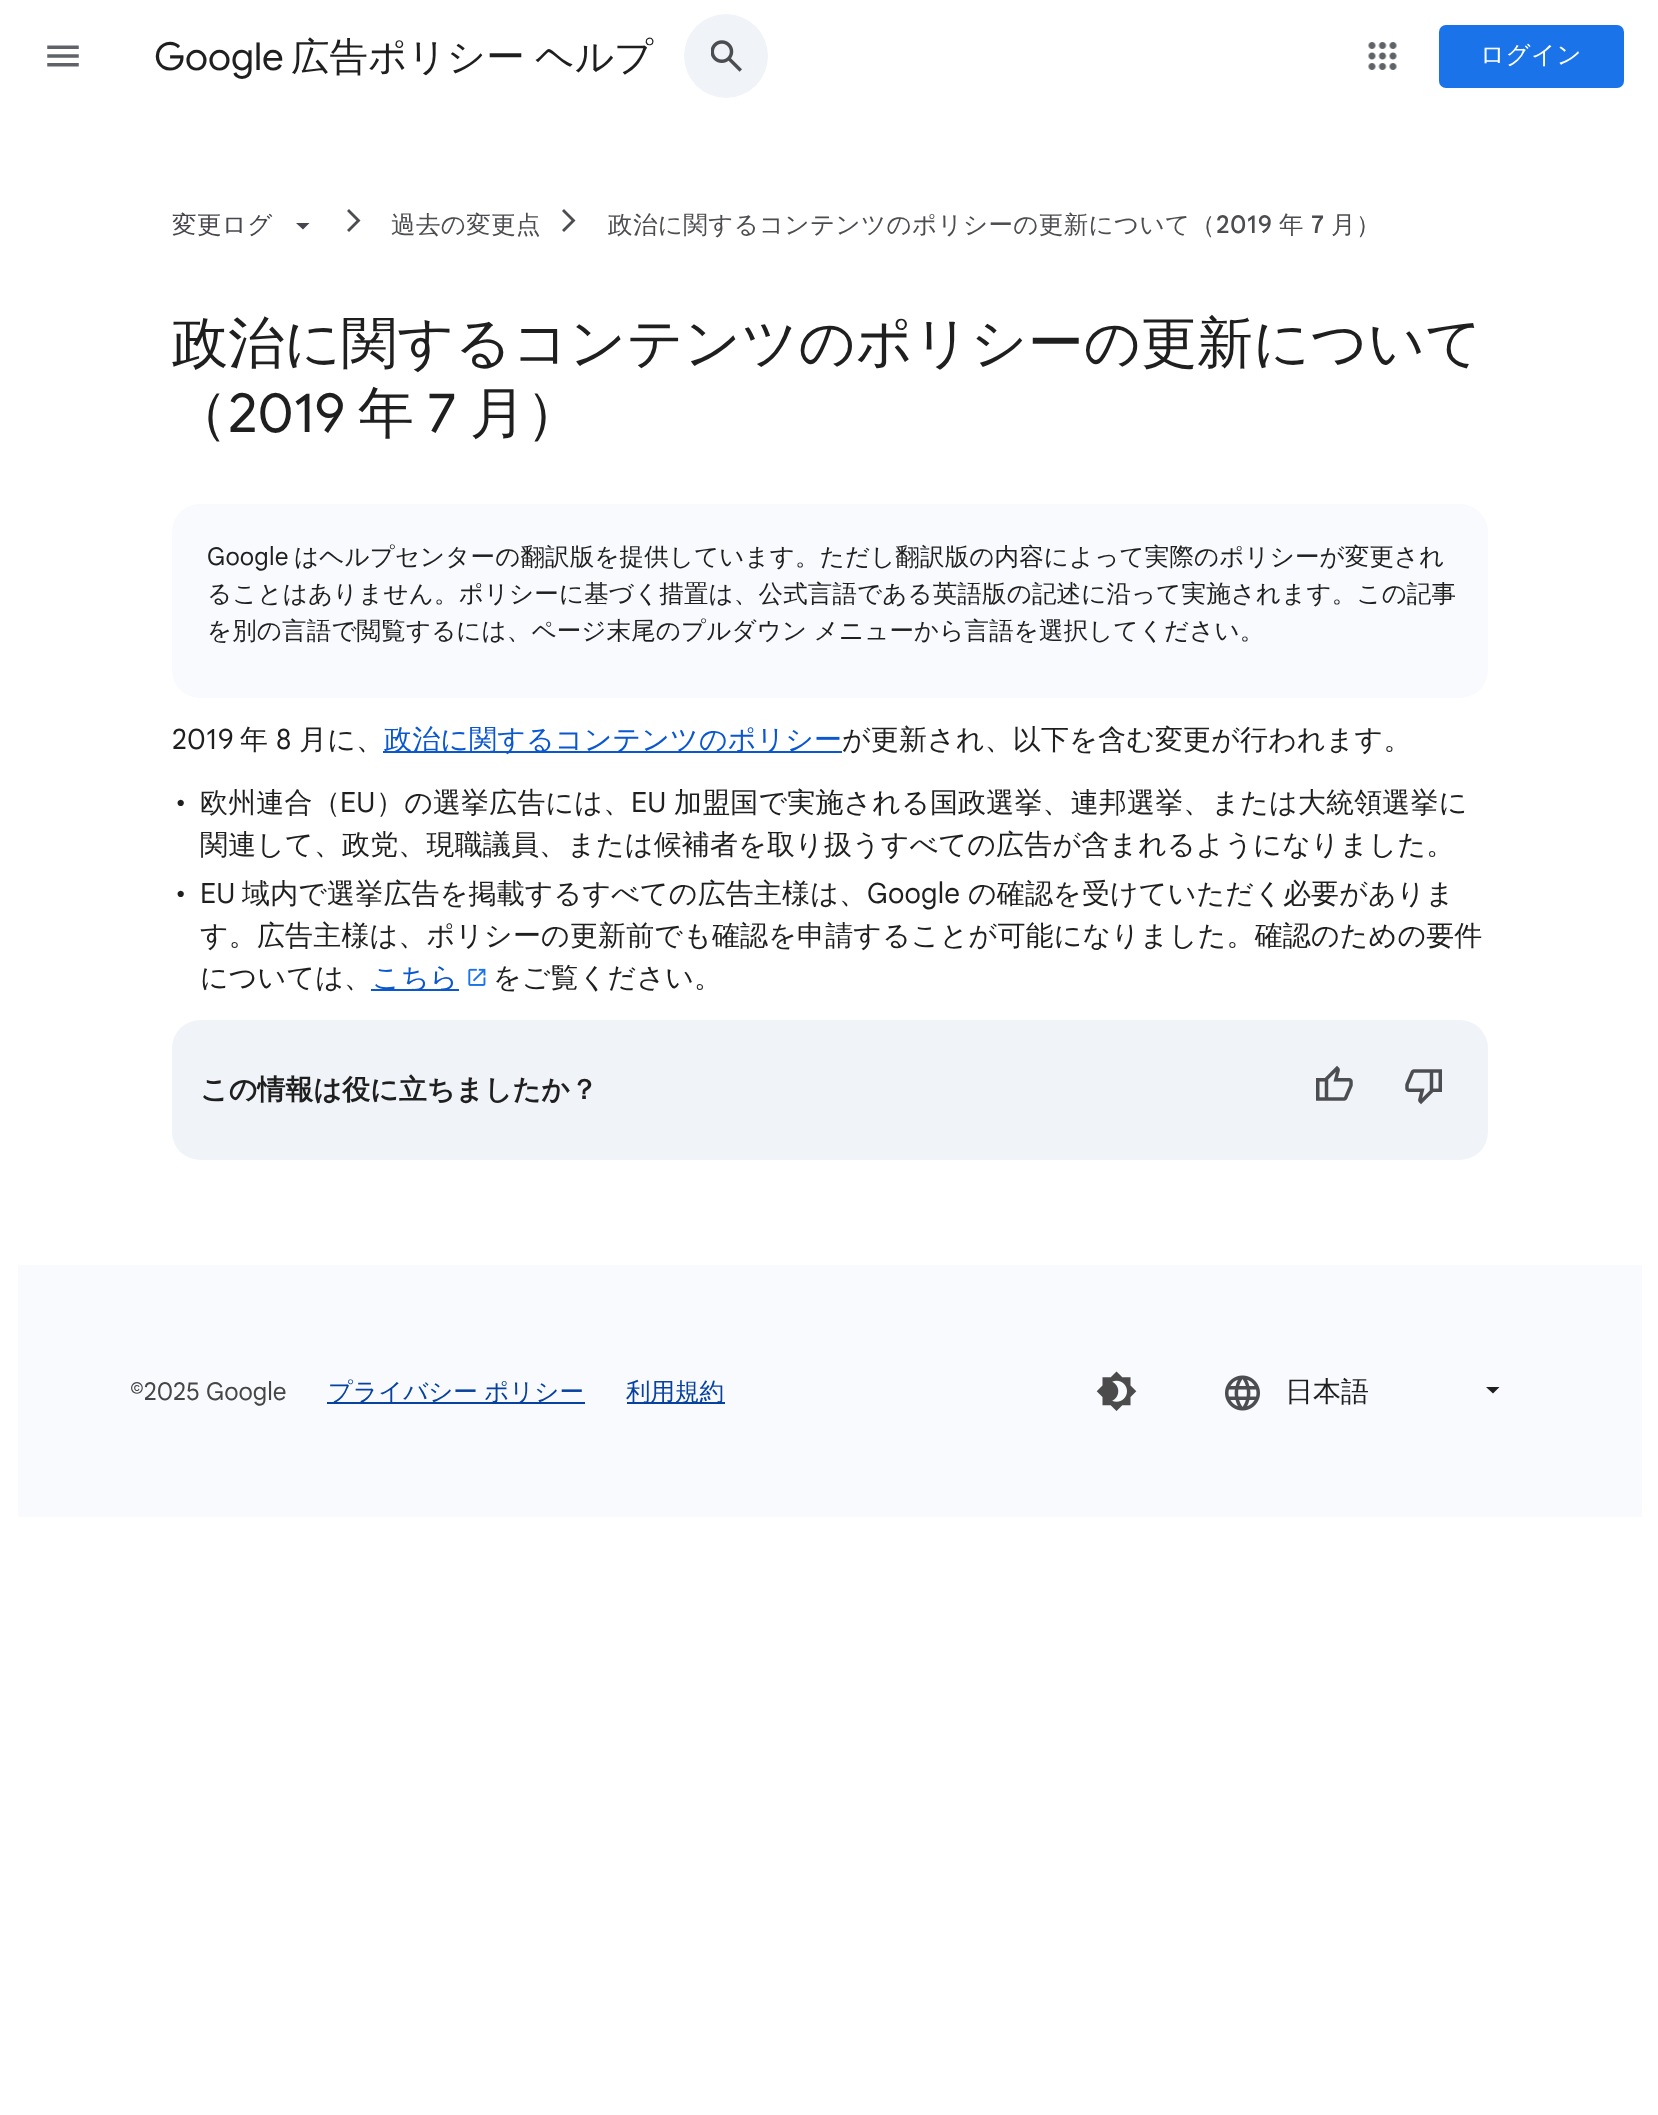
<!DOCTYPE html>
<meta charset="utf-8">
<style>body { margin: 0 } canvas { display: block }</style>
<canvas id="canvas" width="1658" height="2115"></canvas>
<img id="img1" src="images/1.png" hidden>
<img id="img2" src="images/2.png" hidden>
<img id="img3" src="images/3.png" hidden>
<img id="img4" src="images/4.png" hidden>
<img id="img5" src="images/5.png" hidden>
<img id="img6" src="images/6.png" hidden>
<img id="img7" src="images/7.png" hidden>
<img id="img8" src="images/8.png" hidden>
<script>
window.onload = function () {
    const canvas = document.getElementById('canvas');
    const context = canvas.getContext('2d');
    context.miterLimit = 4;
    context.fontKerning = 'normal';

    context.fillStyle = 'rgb(255, 255, 255)';
    context.fillRect(0, 0, 1658, 2115);
    context.drawImage(document.getElementById('img1'), 47, 45, 32, 22);
    context.fillStyle = 'rgb(240, 244, 249)';
    context.beginPath();
    context.arc(726, 56, 42, 0, 2 * Math.PI);
    context.fill();
    context.drawImage(document.getElementById('img2'), 711, 40, 31, 32);
    context.drawImage(document.getElementById('img3'), 1368, 42, 29, 28);
    context.fillStyle = 'rgb(26, 115, 232)';
    context.beginPath();
    context.roundRect(1439, 25, 185, 63, 7);
    context.fill();
    context.fillStyle = 'rgb(73, 69, 78)';
    context.beginPath();
    context.moveTo(296, 223);
    context.lineTo(303, 229.5);
    context.lineTo(309.5, 223);
    context.closePath();
    context.fill();
    context.fillStyle = 'rgb(76, 77, 80)';
    context.beginPath();
    context.moveTo(349, 232);
    context.lineTo(347, 230);
    context.lineTo(356.5, 220.5);
    context.lineTo(347, 211);
    context.lineTo(349, 209);
    context.lineTo(360.5, 220.5);
    context.closePath();
    context.fill();
    context.beginPath();
    context.moveTo(564, 232);
    context.lineTo(562, 230);
    context.lineTo(571.5, 220.5);
    context.lineTo(562, 211);
    context.lineTo(564, 209);
    context.lineTo(575.5, 220.5);
    context.closePath();
    context.fill();
    context.fillStyle = 'rgb(248, 250, 253)';
    context.beginPath();
    context.roundRect(172, 504, 1316, 194, 28);
    context.fill();
    context.fillStyle = 'rgb(11, 87, 208)';
    context.fillRect(383, 751, 459, 2);
    context.fillRect(371, 989, 88, 2);
    context.drawImage(document.getElementById('img4'), 468, 968, 18, 18);
    context.fillStyle = 'rgb(240, 244, 249)';
    context.beginPath();
    context.roundRect(172, 1020, 1316, 140, 28);
    context.fill();
    context.drawImage(document.getElementById('img5'), 1316, 1065, 37, 36);
    context.drawImage(document.getElementById('img6'), 1405, 1069, 37, 36);
    context.fillStyle = 'rgb(248, 250, 253)';
    context.fillRect(18, 1265, 1624, 252);
    context.fillStyle = 'rgb(8, 66, 160)';
    context.fillRect(327, 1402, 258, 2);
    context.fillRect(627, 1402, 98, 2);
    context.drawImage(document.getElementById('img7'), 1096, 1371, 41, 40);
    context.drawImage(document.getElementById('img8'), 1225, 1375, 35, 36);
    context.fillStyle = 'rgb(31, 31, 31)';
    context.beginPath();
    context.moveTo(1486, 1387);
    context.lineTo(1493, 1393.5);
    context.lineTo(1499.5, 1387);
    context.closePath();
    context.fill();
    context.font = '38.5px Google Sans';
    context.fillText('Google', 154, 70);
    context.wordSpacing = '-1px';
    context.font = '500 38.5px WenQuanYi Zen Hei';
    context.fillText('広告ポリシー ヘルプ', 291, 70);
    context.letterSpacing = '0.4px';
    context.wordSpacing = '0px';
    context.font = '500 24.5px WenQuanYi Zen Hei';
    context.fillStyle = 'rgb(255, 255, 255)';
    context.fillText('ログイン', 1480, 63);
    context.fillStyle = 'rgb(73, 69, 78)';
    context.fillText('変更ログ', 172, 233);
    context.fillStyle = 'rgb(76, 77, 80)';
    context.fillText('過去の変更点', 391, 233);
    context.fillText('政治に関するコンテンツのポリシーの更新について（', 608, 233);
    context.font = '500 24.5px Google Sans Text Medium';
    context.fillText('2019', 1216, 233);
    context.font = '500 24.5px WenQuanYi Zen Hei';
    context.fillText('年', 1279, 233);
    context.font = '500 24.5px Google Sans Text Medium';
    context.fillText('7', 1311, 233);
    context.font = '500 24.5px WenQuanYi Zen Hei';
    context.fillText('月）', 1331, 233);
    context.letterSpacing = '0px';
    context.font = '500 56px WenQuanYi Zen Hei';
    context.fillStyle = 'rgb(31, 31, 31)';
    context.fillText('政治に関するコンテンツのポリシーの更新について', 172, 362);
    context.fillText('（', 172, 432);
    context.font = '56px Google Sans';
    context.fillText('2019', 228, 432);
    context.font = '500 56px WenQuanYi Zen Hei';
    context.fillText('年', 358, 432);
    context.font = '56px Google Sans';
    context.fillText('7', 427, 432);
    context.font = '500 56px WenQuanYi Zen Hei';
    context.fillText('月）', 470, 432);
    context.letterSpacing = '0.15px';
    context.font = '24.5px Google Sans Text';
    context.fillText('Google', 207, 565);
    context.font = '500 24.5px WenQuanYi Zen Hei';
    context.fillText('はヘルプセンターの翻訳版を提供しています。ただし翻訳版の内容によって実際のポリシーが変更され', 294, 565);
    context.fillText('ることはありません。ポリシーに基づく措置は、公式言語である英語版の記述に沿って実施されます。この記事', 207, 602);
    context.wordSpacing = '-1px';
    context.fillText('を別の言語で閲覧するには、ページ末尾のプルダウン メニューから言語を選択してください。', 207, 639);
    context.wordSpacing = '0px';
    context.font = '28px Google Sans Text';
    context.fillText('2019', 172, 749);
    context.font = '500 28px WenQuanYi Zen Hei';
    context.fillText('年', 240, 749);
    context.font = '28px Google Sans Text';
    context.fillText('8', 276, 749);
    context.font = '500 28px WenQuanYi Zen Hei';
    context.fillText('月に、', 299, 749);
    context.fillStyle = 'rgb(11, 87, 208)';
    context.fillText('政治に関するコンテンツのポリシー', 384, 749);
    context.fillStyle = 'rgb(31, 31, 31)';
    context.fillText('が更新され、以下を含む変更が行われます。', 842, 749);
    context.font = '28px Google Sans Text';
    context.fillText('•', 175, 812);
    context.font = '500 28px WenQuanYi Zen Hei';
    context.fillText('欧州連合（', 200, 812);
    context.font = '28px Google Sans Text';
    context.fillText('EU', 340, 812);
    context.font = '500 28px WenQuanYi Zen Hei';
    context.fillText('）の選挙広告には、', 376, 812);
    context.font = '28px Google Sans Text';
    context.fillText('EU', 631, 812);
    context.font = '500 28px WenQuanYi Zen Hei';
    context.fillText('加盟国で実施される国政選挙、連邦選挙、または大統領選挙に', 674, 812);
    context.fillText('関連して、政党、現職議員、または候補者を取り扱うすべての広告が含まれるようになりました。', 200, 854);
    context.font = '28px Google Sans Text';
    context.fillText('•', 175, 903);
    context.fillText('EU', 200, 903);
    context.font = '500 28px WenQuanYi Zen Hei';
    context.fillText('域内で選挙広告を掲載するすべての広告主様は、', 242, 903);
    context.font = '28px Google Sans Text';
    context.fillText('Google', 867, 903);
    context.font = '500 28px WenQuanYi Zen Hei';
    context.fillText('の確認を受けていただく必要がありま', 968, 903);
    context.fillText('す。広告主様は、ポリシーの更新前でも確認を申請することが可能になりました。確認のための要件', 200, 945);
    context.fillText('については、', 200, 987);
    context.fillStyle = 'rgb(11, 87, 208)';
    context.fillText('こちら', 372, 987);
    context.fillStyle = 'rgb(31, 31, 31)';
    context.fillText('をご覧ください。', 493, 987);
    context.letterSpacing = '0px';
    context.font = 'bold 28px WenQuanYi Zen Hei';
    context.fillText('この情報は役に立ちましたか？', 200, 1099);
    context.font = '24.5px Google Sans Text';
    context.fillStyle = 'rgb(68, 71, 70)';
    context.fillText('©2025 Google', 130, 1400);
    context.wordSpacing = '-1px';
    context.font = '500 24.5px WenQuanYi Zen Hei';
    context.fillStyle = 'rgb(8, 66, 160)';
    context.fillText('プライバシー ポリシー', 328, 1400);
    context.wordSpacing = '0px';
    context.fillText('利用規約', 626, 1400);
    context.font = '500 28px WenQuanYi Zen Hei';
    context.fillStyle = 'rgb(31, 31, 31)';
    context.fillText('日本語', 1285, 1401);
};
</script>
